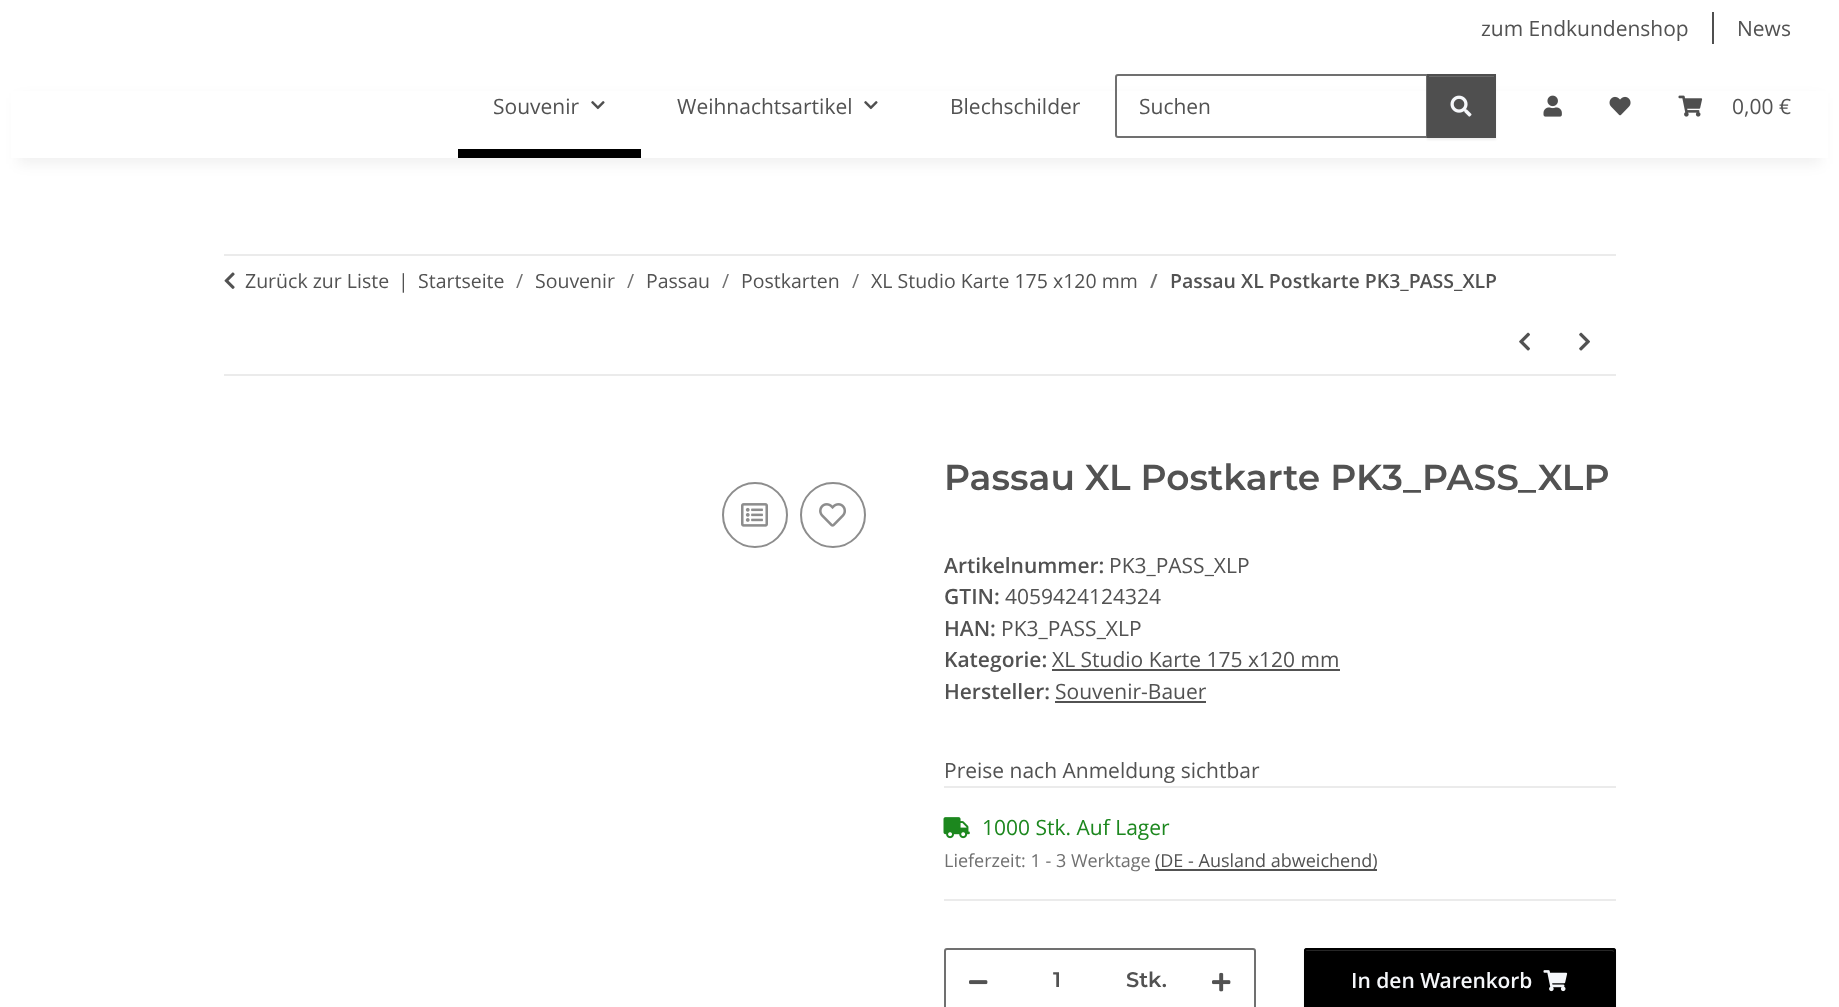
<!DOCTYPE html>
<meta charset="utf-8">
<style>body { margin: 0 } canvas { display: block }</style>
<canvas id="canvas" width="1839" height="1007"></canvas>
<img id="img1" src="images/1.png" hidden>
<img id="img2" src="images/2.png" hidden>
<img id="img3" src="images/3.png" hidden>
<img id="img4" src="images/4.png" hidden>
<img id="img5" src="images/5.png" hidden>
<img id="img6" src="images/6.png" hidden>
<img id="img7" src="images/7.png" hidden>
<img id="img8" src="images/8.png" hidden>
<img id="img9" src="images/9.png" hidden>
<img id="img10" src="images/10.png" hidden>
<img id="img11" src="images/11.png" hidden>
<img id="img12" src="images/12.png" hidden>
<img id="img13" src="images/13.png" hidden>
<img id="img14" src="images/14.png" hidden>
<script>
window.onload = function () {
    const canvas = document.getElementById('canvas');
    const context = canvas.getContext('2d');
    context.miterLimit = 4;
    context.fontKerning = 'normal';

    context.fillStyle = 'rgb(255, 255, 255)';
    context.fillRect(0, 0, 1839, 1007);
    context.fillStyle = 'rgb(79, 79, 79)';
    context.fillRect(1712, 12, 2, 32);
    context.fillStyle = 'rgba(0, 0, 0, 0.06)';
    context.filter = 'blur(7px)';
    context.beginPath();
    context.rect(18, 98, 1803, 66);
    context.fill();
    context.filter = 'none';
    context.fillStyle = 'rgb(255, 255, 255)';
    context.fillRect(11, 91, 1817, 67);
    context.drawImage(document.getElementById('img1'), 591, 101, 14, 9);
    context.fillStyle = 'rgb(0, 0, 0)';
    context.fillRect(458, 149, 183, 9);
    context.drawImage(document.getElementById('img1'), 864, 101, 14, 9);
    context.beginPath();
    context.roundRect(1116, 75, 311, 62, [2, 0, 0, 2]);
    context.strokeStyle = 'rgb(112, 112, 112)';
    context.lineWidth = 2;
    context.stroke();
    context.fillStyle = 'rgba(0, 0, 0, 0.07)';
    context.filter = 'blur(1px)';
    context.beginPath();
    context.rect(1427, 75, 69, 65);
    context.fill();
    context.filter = 'none';
    context.fillStyle = 'rgb(79, 79, 79)';
    context.fillRect(1429, 77, 65, 59);
    context.fillStyle = 'rgb(105, 105, 105)';
    context.fillRect(1428, 76, 66, 1);
    context.strokeStyle = 'rgb(79, 79, 79)';
    context.strokeRect(1428, 75, 67, 62);
    context.drawImage(document.getElementById('img2'), 1450, 95, 22, 22);
    context.drawImage(document.getElementById('img3'), 1543, 95, 19, 22);
    context.drawImage(document.getElementById('img4'), 1609, 96, 22, 20);
    context.drawImage(document.getElementById('img5'), 1678, 95, 25, 22);
    context.fillStyle = 'rgb(235, 235, 235)';
    context.fillRect(224, 254, 1392, 2);
    context.fillRect(224, 374, 1392, 2);
    context.drawImage(document.getElementById('img6'), 224, 272, 11, 17);
    context.drawImage(document.getElementById('img7'), 1519, 332, 11, 19);
    context.drawImage(document.getElementById('img8'), 1579, 332, 11, 19);
    context.beginPath();
    context.arc(755, 515, 32, 0, 2 * Math.PI);
    context.strokeStyle = 'rgb(141, 141, 141)';
    context.stroke();
    context.drawImage(document.getElementById('img9'), 741, 503, 27, 24);
    context.beginPath();
    context.arc(833, 515, 32, 0, 2 * Math.PI);
    context.stroke();
    context.drawImage(document.getElementById('img10'), 819, 503, 27, 24);
    context.fillStyle = 'rgb(82, 82, 82)';
    context.fillRect(1052, 669, 288, 2);
    context.fillRect(1055, 701, 151, 2);
    context.fillStyle = 'rgb(235, 235, 235)';
    context.fillRect(944, 786, 672, 2);
    context.fillRect(944, 899, 672, 2);
    context.drawImage(document.getElementById('img11'), 943, 817, 27, 22);
    context.fillStyle = 'rgb(82, 82, 82)';
    context.fillRect(1155, 869, 222, 2);
    context.beginPath();
    context.roundRect(945, 949, 310, 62, 2);
    context.strokeStyle = 'rgb(112, 112, 112)';
    context.stroke();
    context.drawImage(document.getElementById('img12'), 969, 980, 19, 5);
    context.drawImage(document.getElementById('img13'), 1212, 972, 19, 20);
    context.fillStyle = 'rgba(0, 0, 0, 0.07)';
    context.filter = 'blur(1px)';
    context.beginPath();
    context.roundRect(1304, 950, 312, 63, 3);
    context.fill();
    context.filter = 'none';
    context.fillStyle = 'rgb(0, 0, 0)';
    context.beginPath();
    context.roundRect(1304, 948, 312, 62, 3);
    context.fill();
    context.fillStyle = 'rgb(38, 38, 38)';
    context.beginPath();
    context.moveTo(1306, 951);
    context.lineTo(1612, 951);
    context.lineTo(1614, 952);
    context.bezierCurveTo(1614, 951, 1614, 950, 1612, 950);
    context.lineTo(1306, 950);
    context.lineTo(1305, 951);
    context.lineTo(1305, 952);
    context.closePath();
    context.fill();
    context.beginPath();
    context.roundRect(1305, 949, 310, 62, 2);
    context.strokeStyle = 'rgb(0, 0, 0)';
    context.stroke();
    context.drawImage(document.getElementById('img14'), 1543, 970, 25, 22);
    context.font = '21px Open Sans';
    context.fillStyle = 'rgb(82, 82, 82)';
    context.fillText('zum Endkundenshop', 1481, 36);
    context.fillText('News', 1737, 36);
    context.fillText('Souvenir', 493, 114);
    context.fillText('Weihnachtsartikel', 677, 114);
    context.fillText('Blechschilder', 950, 114);
    context.fillText('Suchen', 1139, 114);
    context.fillText('0,00 €', 1732, 114);
    context.font = '19.5px Open Sans';
    context.fillText('Zurück zur Liste', 245, 288);
    context.fillText('|', 398, 288);
    context.fillText('Startseite', 418, 288);
    context.fillStyle = 'rgb(112, 112, 112)';
    context.fillText('/', 516, 288);
    context.fillStyle = 'rgb(82, 82, 82)';
    context.fillText('Souvenir', 535, 288);
    context.fillStyle = 'rgb(112, 112, 112)';
    context.fillText('/', 627, 288);
    context.fillStyle = 'rgb(82, 82, 82)';
    context.fillText('Passau', 646, 288);
    context.fillStyle = 'rgb(112, 112, 112)';
    context.fillText('/', 722, 288);
    context.fillStyle = 'rgb(82, 82, 82)';
    context.fillText('Postkarten', 741, 288);
    context.fillStyle = 'rgb(112, 112, 112)';
    context.fillText('/', 852, 288);
    context.fillStyle = 'rgb(82, 82, 82)';
    context.fillText('XL Studio Karte 175 x120 mm', 871, 288);
    context.font = '600 19.5px Open Sans';
    context.fillStyle = 'rgb(112, 112, 112)';
    context.fillText('/', 1150, 288);
    context.fillStyle = 'rgb(82, 82, 82)';
    context.fillText('Passau XL Postkarte PK3_PASS_XLP', 1170, 288);
    context.font = '600 36px Montserrat';
    context.fillText('Passau XL Postkarte PK3_PASS_XLP', 944, 490);
    context.font = '600 21px Open Sans';
    context.fillText('Artikelnummer:', 944, 573);
    context.font = '21px Open Sans';
    context.fillText('PK3_PASS_XLP', 1109, 573);
    context.font = '600 21px Open Sans';
    context.fillText('GTIN:', 944, 604);
    context.font = '21px Open Sans';
    context.fillText('4059424124324', 1005, 604);
    context.font = '600 21px Open Sans';
    context.fillText('HAN:', 944, 636);
    context.font = '21px Open Sans';
    context.fillText('PK3_PASS_XLP', 1001, 636);
    context.font = '600 21px Open Sans';
    context.fillText('Kategorie:', 944, 667);
    context.font = '21px Open Sans';
    context.fillText('XL Studio Karte 175 x120 mm', 1052, 667);
    context.font = '600 21px Open Sans';
    context.fillText('Hersteller:', 944, 699);
    context.font = '21px Open Sans';
    context.fillText('Souvenir-Bauer', 1055, 699);
    context.fillText('Preise nach Anmeldung sichtbar', 944, 778);
    context.fillStyle = 'rgb(28, 135, 30)';
    context.fillText('1000 Stk. Auf Lager', 982, 835);
    context.font = '18px Open Sans';
    context.fillStyle = 'rgb(112, 112, 112)';
    context.fillText('Lieferzeit: 1 - 3 Werktage', 944, 867);
    context.fillStyle = 'rgb(82, 82, 82)';
    context.fillText('(DE - Ausland abweichend)', 1155, 867);
    context.font = '600 21px Montserrat';
    context.fillText('1', 1053, 987);
    context.fillText('Stk.', 1126, 987);
    context.font = '600 21px Open Sans';
    context.fillStyle = 'rgb(245, 247, 250)';
    context.fillText('In den Warenkorb', 1351, 988);
};
</script>
